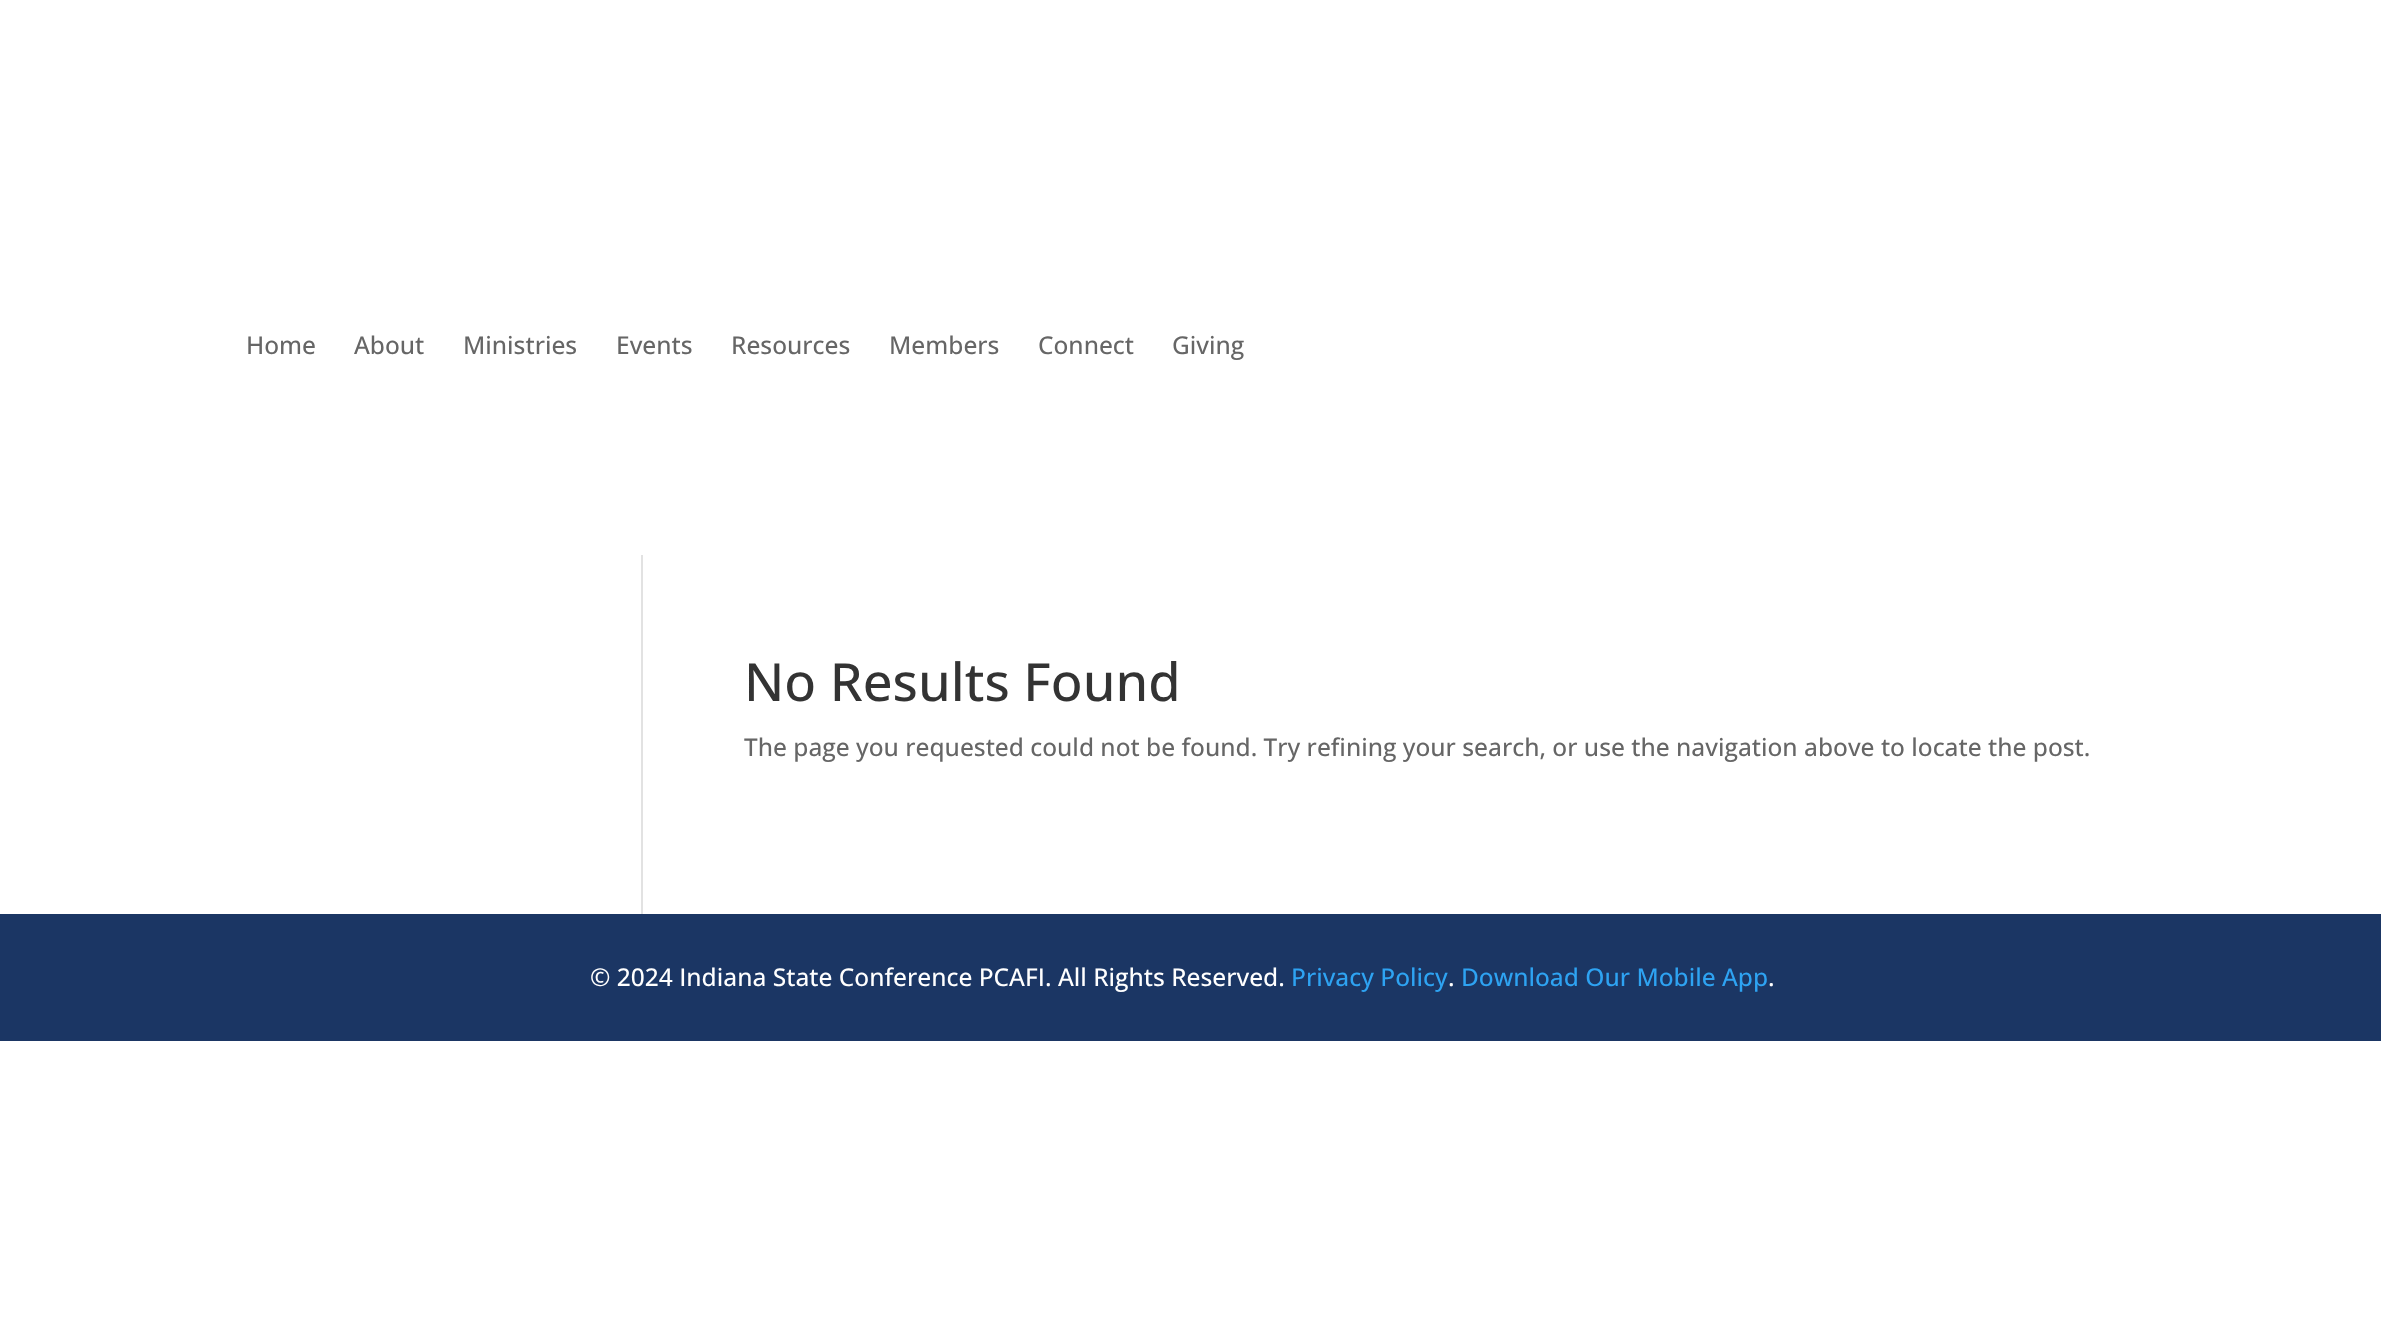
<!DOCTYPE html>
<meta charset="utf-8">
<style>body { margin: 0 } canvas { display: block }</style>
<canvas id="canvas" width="2381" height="1338"></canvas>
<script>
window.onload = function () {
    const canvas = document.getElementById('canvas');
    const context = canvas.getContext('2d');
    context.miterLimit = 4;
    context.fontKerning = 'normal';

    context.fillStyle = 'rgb(255, 255, 255)';
    context.fillRect(0, 0, 2381, 1338);
    context.fillStyle = 'rgb(226, 226, 226)';
    context.fillRect(641, 555, 2, 359);
    context.fillStyle = 'rgb(27, 54, 100)';
    context.fillRect(0, 914, 2381, 127);
    context.font = '500 24.5px Open Sans';
    context.fillStyle = 'rgb(102, 102, 102)';
    context.fillText('Home', 246, 354);
    context.fillText('About', 354, 354);
    context.fillText('Ministries', 463, 354);
    context.fillText('Events', 616, 354);
    context.fillText('Resources', 731, 354);
    context.fillText('Members', 889, 354);
    context.fillText('Connect', 1038, 354);
    context.fillText('Giving', 1172, 354);
    context.font = '500 52.5px Open Sans';
    context.fillStyle = 'rgb(51, 51, 51)';
    context.fillText('No Results Found', 744, 701);
    context.font = '500 24.5px Open Sans';
    context.fillStyle = 'rgb(102, 102, 102)';
    context.fillText('The page you requested could not be found. Try refining your search, or use the navigation above to locate the post.', 744, 756);
    context.fillStyle = 'rgb(255, 255, 255)';
    context.fillText('© 2024 Indiana State Conference PCAFI. All Rights Reserved.', 590, 986);
    context.fillStyle = 'rgb(46, 163, 242)';
    context.fillText('Privacy Policy', 1291, 986);
    context.fillStyle = 'rgb(255, 255, 255)';
    context.fillText('.', 1448, 986);
    context.fillStyle = 'rgb(46, 163, 242)';
    context.fillText('Download Our Mobile App', 1461, 986);
    context.fillStyle = 'rgb(255, 255, 255)';
    context.fillText('.', 1768, 986);
};
</script>
